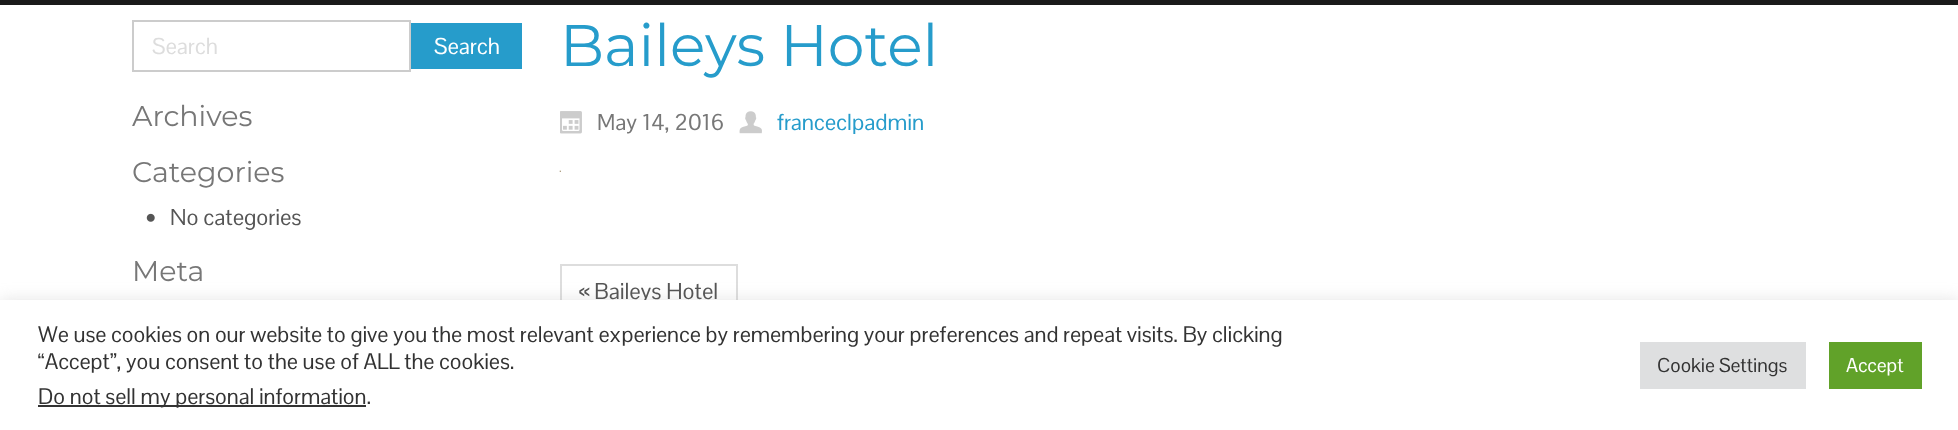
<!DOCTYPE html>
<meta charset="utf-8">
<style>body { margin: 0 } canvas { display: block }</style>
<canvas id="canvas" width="1958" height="430"></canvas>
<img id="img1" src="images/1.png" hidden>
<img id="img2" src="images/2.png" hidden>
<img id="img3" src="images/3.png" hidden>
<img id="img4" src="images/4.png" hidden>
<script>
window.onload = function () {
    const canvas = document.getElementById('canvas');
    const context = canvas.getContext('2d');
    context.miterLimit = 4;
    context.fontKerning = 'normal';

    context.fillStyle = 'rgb(255, 255, 255)';
    context.fillRect(0, 0, 1958, 430);
    context.fillStyle = 'rgb(26, 26, 26)';
    context.fillRect(0, 0, 1958, 5);
    context.strokeStyle = 'rgb(204, 204, 204)';
    context.lineWidth = 2;
    context.strokeRect(133, 21, 277, 50);
    context.fillStyle = 'rgb(38, 156, 203)';
    context.fillRect(411, 23, 111, 46);
    context.drawImage(document.getElementById('img1'), 146, 213, 9, 9);
    context.drawImage(document.getElementById('img2'), 560, 111, 22, 23);
    context.drawImage(document.getElementById('img3'), 739, 111, 23, 23);
    context.drawImage(document.getElementById('img4'), 559, 170, 2, 2);
    context.strokeStyle = 'rgb(221, 221, 221)';
    context.strokeRect(561, 265, 176, 51);
    context.fillStyle = 'rgba(172, 171, 171, 0.3)';
    context.filter = 'blur(7.5px)';
    context.beginPath();
    context.rect(0, 299, 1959, 130);
    context.fill();
    context.filter = 'none';
    context.font = '22.5px Pontano Sans';
    context.fillStyle = 'rgb(221, 221, 221)';
    context.fillText('Search', 152, 54);
    context.fillStyle = 'rgb(255, 255, 255)';
    context.fillText('Search', 434, 54);
    context.font = '28.5px Montserrat';
    context.fillStyle = 'rgb(119, 119, 119)';
    context.fillText('Archives', 132, 126);
    context.fillText('Categories', 132, 182);
    context.font = '22.5px Pontano Sans';
    context.fillStyle = 'rgb(85, 85, 85)';
    context.fillText('No categories', 170, 225);
    context.font = '28.5px Montserrat';
    context.fillStyle = 'rgb(119, 119, 119)';
    context.fillText('Meta', 132, 281);
    context.font = '58.5px Montserrat';
    context.fillStyle = 'rgb(38, 156, 203)';
    context.fillText('Baileys Hotel', 560, 66);
    context.font = '22.5px Pontano Sans';
    context.fillStyle = 'rgb(119, 119, 119)';
    context.fillText('May 14, 2016', 597, 130);
    context.fillStyle = 'rgb(38, 156, 203)';
    context.fillText('franceclpadmin', 777, 130);
    context.fillStyle = 'rgb(85, 85, 85)';
    context.fillText('« Baileys Hotel', 579, 299);
    context.fillStyle = 'rgb(255, 255, 255)';
    context.fillRect(0, 300, 1958, 130);
    context.font = '22px Pontano Sans';
    context.fillStyle = 'rgb(51, 51, 51)';
    context.fillText('We use cookies on our website to give you the most relevant experience by remembering your preferences and repeat visits. By clicking', 38, 342);
    context.fillText('“Accept”, you consent to the use of ALL the cookies.', 38, 369);
    context.fillRect(38, 405, 328, 2);
    context.fillText('Do not sell my personal information.', 38, 404);
    context.fillStyle = 'rgb(222, 223, 224)';
    context.fillRect(1640, 342, 166, 47);
    context.font = '19.5px Pontano Sans';
    context.fillStyle = 'rgb(51, 51, 51)';
    context.fillText('Cookie Settings', 1657, 372);
    context.fillStyle = 'rgb(97, 162, 41)';
    context.fillRect(1829, 342, 93, 47);
    context.fillStyle = 'rgb(255, 255, 255)';
    context.fillText('Accept', 1846, 372);
};
</script>
